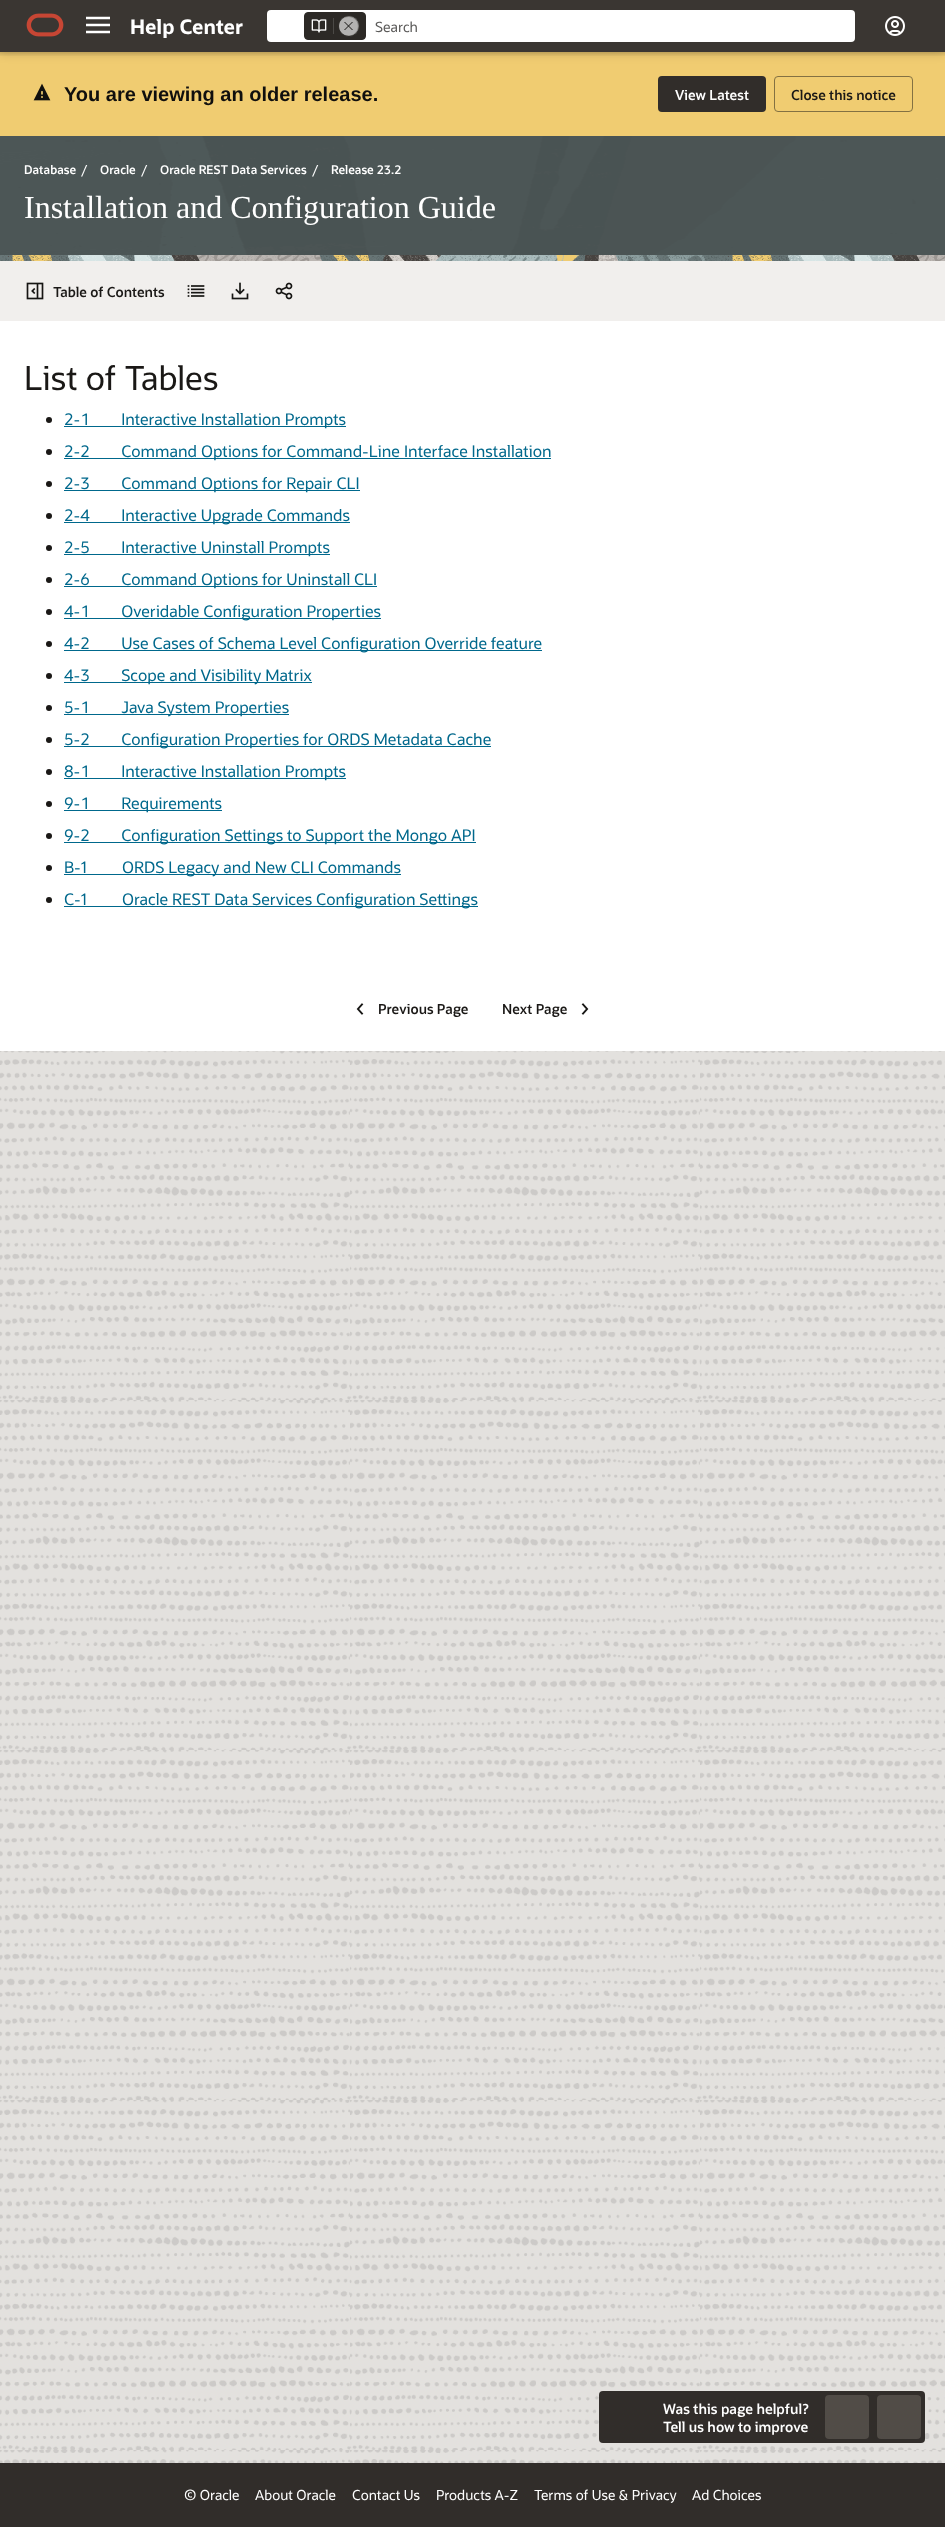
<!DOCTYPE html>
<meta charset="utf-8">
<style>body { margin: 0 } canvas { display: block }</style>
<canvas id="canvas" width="945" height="2527"></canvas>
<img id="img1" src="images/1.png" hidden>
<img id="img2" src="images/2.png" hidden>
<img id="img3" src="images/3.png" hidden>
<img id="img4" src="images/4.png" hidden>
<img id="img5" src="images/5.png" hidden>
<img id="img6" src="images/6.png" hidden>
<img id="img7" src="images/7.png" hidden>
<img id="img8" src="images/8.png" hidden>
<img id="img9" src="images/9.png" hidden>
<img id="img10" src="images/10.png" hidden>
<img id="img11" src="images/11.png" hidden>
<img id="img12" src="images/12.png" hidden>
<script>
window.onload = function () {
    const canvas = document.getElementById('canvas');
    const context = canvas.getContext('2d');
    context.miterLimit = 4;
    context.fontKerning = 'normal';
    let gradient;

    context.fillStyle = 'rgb(240, 204, 113)';
    context.fillRect(0, 0, 945, 2527);
    context.fillStyle = 'rgba(0, 0, 0, 0.15)';
    context.filter = 'blur(5px)';
    context.beginPath();
    context.rect(0, 2, 945, 52);
    context.fill();
    context.filter = 'none';
    context.fillStyle = 'rgb(58, 54, 50)';
    context.fillRect(0, 0, 945, 52);
    context.drawImage(document.getElementById('img1'), 26, 13, 38, 24);
    context.beginPath();
    context.moveTo(86, 18);
    context.lineTo(110, 18);
    context.moveTo(86, 25);
    context.lineTo(110, 25);
    context.moveTo(86, 32);
    context.lineTo(110, 32);
    context.strokeStyle = 'rgb(255, 255, 255)';
    context.lineWidth = 2.4;
    context.stroke();
    context.fillStyle = 'rgb(255, 255, 255)';
    context.beginPath();
    context.roundRect(267, 10, 588, 32, 4);
    context.fill();
    context.fillStyle = 'rgb(44, 41, 38)';
    context.beginPath();
    context.roundRect(304.5, 12.5, 61, 27, 3.5);
    context.fill();
    context.strokeStyle = 'rgb(44, 41, 38)';
    context.lineWidth = 1;
    context.stroke();
    context.drawImage(document.getElementById('img2'), 311, 19, 16, 14);
    context.fillStyle = 'rgb(75, 73, 70)';
    context.fillRect(333, 18, 1, 16);
    context.fillStyle = 'rgb(128, 127, 125)';
    context.beginPath();
    context.arc(349, 26, 10.5, 0, 2 * Math.PI);
    context.fill();
    context.stroke();
    context.fillStyle = 'rgba(255, 255, 255, 0.4)';
    context.beginPath();
    context.moveTo(348.5, 17);
    context.bezierCurveTo(336, 17, 336, 35.5, 348.5, 35.5);
    context.bezierCurveTo(361, 35.5, 361, 17, 348.5, 17);
    context.closePath();
    context.fill();
    context.beginPath();
    context.moveTo(344.5, 22);
    context.lineTo(352.5, 30);
    context.moveTo(352.5, 22);
    context.lineTo(344.5, 30);
    context.strokeStyle = 'rgb(22, 21, 19)';
    context.stroke();
    context.drawImage(document.getElementById('img3'), 885, 16, 20, 20);
    gradient = context.createLinearGradient(473, 52, 473, 57);
    gradient.addColorStop(0, 'rgba(0, 0, 0, 0.12)');
    gradient.addColorStop(1, 'rgba(0, 0, 0, 0)');
    context.fillStyle = gradient;
    context.fillRect(0, 52, 945, 4);
    context.drawImage(document.getElementById('img4'), 33, 83, 18, 18);
    context.fillStyle = 'rgb(49, 45, 42)';
    context.beginPath();
    context.roundRect(658, 76, 108, 36, 4);
    context.fill();
    context.beginPath();
    context.roundRect(774.5, 76.5, 138, 35, 3.5);
    context.strokeStyle = 'rgb(131, 113, 66)';
    context.stroke();
    context.drawImage(document.getElementById('img5'), 0, 136, 945, 2327);
    context.drawImage(document.getElementById('img6'), 0, 255, 945, 6);
    context.fillStyle = 'rgb(241, 239, 237)';
    context.fillRect(0, 261, 945, 60);
    context.drawImage(document.getElementById('img7'), 26, 282, 18, 18);
    context.drawImage(document.getElementById('img8'), 187, 285, 18, 12);
    context.drawImage(document.getElementById('img9'), 231, 282, 18, 18);
    context.drawImage(document.getElementById('img10'), 275, 282, 18, 18);
    context.fillStyle = 'rgb(255, 255, 255)';
    context.fillRect(0, 321, 945, 730);
    context.fillStyle = 'rgb(26, 24, 22)';
    context.beginPath();
    context.arc(49, 420, 3, 0, 2 * Math.PI);
    context.fill();
    context.fillStyle = 'rgb(0, 104, 140)';
    context.fillRect(64, 426, 282, 1);
    context.fillStyle = 'rgb(26, 24, 22)';
    context.beginPath();
    context.arc(49, 452, 3, 0, 2 * Math.PI);
    context.fill();
    context.fillStyle = 'rgb(0, 104, 140)';
    context.fillRect(64, 458, 487, 1);
    context.fillStyle = 'rgb(26, 24, 22)';
    context.beginPath();
    context.arc(49, 484, 3, 0, 2 * Math.PI);
    context.fill();
    context.fillStyle = 'rgb(0, 104, 140)';
    context.fillRect(64, 490, 296, 1);
    context.fillStyle = 'rgb(26, 24, 22)';
    context.beginPath();
    context.arc(49, 516, 3, 0, 2 * Math.PI);
    context.fill();
    context.fillStyle = 'rgb(0, 104, 140)';
    context.fillRect(64, 522, 286, 1);
    context.fillStyle = 'rgb(26, 24, 22)';
    context.beginPath();
    context.arc(49, 548, 3, 0, 2 * Math.PI);
    context.fill();
    context.fillStyle = 'rgb(0, 104, 140)';
    context.fillRect(64, 554, 266, 1);
    context.fillStyle = 'rgb(26, 24, 22)';
    context.beginPath();
    context.arc(49, 580, 3, 0, 2 * Math.PI);
    context.fill();
    context.fillStyle = 'rgb(0, 104, 140)';
    context.fillRect(64, 586, 313, 1);
    context.fillStyle = 'rgb(26, 24, 22)';
    context.beginPath();
    context.arc(49, 612, 3, 0, 2 * Math.PI);
    context.fill();
    context.fillStyle = 'rgb(0, 104, 140)';
    context.fillRect(64, 618, 317, 1);
    context.fillStyle = 'rgb(26, 24, 22)';
    context.beginPath();
    context.arc(49, 644, 3, 0, 2 * Math.PI);
    context.fill();
    context.fillStyle = 'rgb(0, 104, 140)';
    context.fillRect(64, 650, 478, 1);
    context.fillStyle = 'rgb(26, 24, 22)';
    context.beginPath();
    context.arc(49, 676, 3, 0, 2 * Math.PI);
    context.fill();
    context.fillStyle = 'rgb(0, 104, 140)';
    context.fillRect(64, 682, 248, 1);
    context.fillStyle = 'rgb(26, 24, 22)';
    context.beginPath();
    context.arc(49, 708, 3, 0, 2 * Math.PI);
    context.fill();
    context.fillStyle = 'rgb(0, 104, 140)';
    context.fillRect(64, 714, 225, 1);
    context.fillStyle = 'rgb(26, 24, 22)';
    context.beginPath();
    context.arc(49, 740, 3, 0, 2 * Math.PI);
    context.fill();
    context.fillStyle = 'rgb(0, 104, 140)';
    context.fillRect(64, 746, 427, 1);
    context.fillStyle = 'rgb(26, 24, 22)';
    context.beginPath();
    context.arc(49, 772, 3, 0, 2 * Math.PI);
    context.fill();
    context.fillStyle = 'rgb(0, 104, 140)';
    context.fillRect(64, 778, 282, 1);
    context.fillStyle = 'rgb(26, 24, 22)';
    context.beginPath();
    context.arc(49, 804, 3, 0, 2 * Math.PI);
    context.fill();
    context.fillStyle = 'rgb(0, 104, 140)';
    context.fillRect(64, 810, 158, 1);
    context.fillStyle = 'rgb(26, 24, 22)';
    context.beginPath();
    context.arc(49, 836, 3, 0, 2 * Math.PI);
    context.fill();
    context.fillStyle = 'rgb(0, 104, 140)';
    context.fillRect(64, 842, 412, 1);
    context.fillStyle = 'rgb(26, 24, 22)';
    context.beginPath();
    context.arc(49, 868, 3, 0, 2 * Math.PI);
    context.fill();
    context.fillStyle = 'rgb(0, 104, 140)';
    context.fillRect(64, 874, 337, 1);
    context.fillStyle = 'rgb(26, 24, 22)';
    context.beginPath();
    context.arc(49, 900, 3, 0, 2 * Math.PI);
    context.fill();
    context.fillStyle = 'rgb(0, 104, 140)';
    context.fillRect(64, 906, 414, 1);
    context.drawImage(document.getElementById('img11'), 356, 1003, 8, 12);
    context.drawImage(document.getElementById('img12'), 581, 1003, 8, 12);
    context.fillStyle = 'rgb(49, 45, 42)';
    context.fillRect(0, 2463, 945, 64);
    context.beginPath();
    context.roundRect(599, 2391, 326, 52, 4);
    context.fill();
    context.fillStyle = 'rgb(81, 76, 71)';
    context.beginPath();
    context.roundRect(825, 2395, 44, 44, 4);
    context.fill();
    context.beginPath();
    context.roundRect(877, 2395, 44, 44, 4);
    context.fill();
    context.font = 'bold 20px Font';
    context.fillStyle = 'rgb(255, 255, 255)';
    context.fillText('Help Center', 130, 34);
    context.font = '14px Font';
    context.fillStyle = 'rgb(92, 91, 90)';
    context.fillText('Search', 375, 32);
    context.font = 'bold 20px Liberation Sans';
    context.fillStyle = 'rgb(16, 15, 14)';
    context.fillText('You are viewing an older release.', 64, 101);
    context.font = '600 13.75px Font';
    context.fillStyle = 'rgb(255, 255, 255)';
    context.fillText('View Latest', 675, 100);
    context.fillStyle = 'rgb(26, 24, 22)';
    context.fillText('Close this notice', 791, 100);
    context.font = '600 12px Font';
    context.fillStyle = 'rgb(255, 255, 255)';
    context.fillText('Database', 24, 174);
    context.font = '12px Font';
    context.fillText('/', 81, 174);
    context.font = '600 12px Font';
    context.fillText('Oracle', 100, 174);
    context.font = '12px Font';
    context.fillText('/', 141, 174);
    context.font = '600 12px Font';
    context.fillText('Oracle REST Data Services', 160, 174);
    context.font = '12px Font';
    context.fillText('/', 312, 174);
    context.font = '600 12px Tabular';
    context.fillText('Release 23.2', 331, 174);
    context.font = '32px Liberation Serif';
    context.fillText('Installation and Configuration Guide', 24, 218);
    context.font = '600 13.75px Font';
    context.fillStyle = 'rgb(26, 24, 22)';
    context.fillText('Table of Contents', 53, 297);
    context.font = '33px Font';
    context.fillText('List of Tables', 24, 390);
    context.font = '16px Tabular';
    context.fillStyle = 'rgb(0, 104, 140)';
    context.fillText('2-1        Interactive Installation Prompts', 64, 425);
    context.fillText('2-2        Command Options for Command-Line', 64, 457);
    context.font = '16px Font';
    context.fillText('Interface Installation', 404, 457);
    context.font = '16px Tabular';
    context.fillText('2-3        Command Options for Repair CLI', 64, 489);
    context.fillText('2-4        Interactive Upgrade Commands', 64, 521);
    context.fillText('2-5        Interactive Uninstall Prompts', 64, 553);
    context.fillText('2-6        Command Options for Uninstall', 64, 585);
    context.font = '16px Font';
    context.fillText('CLI', 354, 585);
    context.font = '16px Tabular';
    context.fillText('4-1        Overidable Configuration Properties', 64, 617);
    context.fillText('4-2        Use Cases of Schema Level Configuration Override feature', 64, 649);
    context.fillText('4-3        Scope and Visibility Matrix', 64, 681);
    context.fillText('5-1        Java System Properties', 64, 713);
    context.fillText('5-2        Configuration Properties for ORDS Metadata Cache', 64, 745);
    context.fillText('8-1        Interactive Installation Prompts', 64, 777);
    context.fillText('9-1        Requirements', 64, 809);
    context.fillText('9-2        Configuration Settings to Support', 64, 841);
    context.font = '16px Font';
    context.fillText('the Mongo API', 368, 841);
    context.fillText('B-1', 64, 873);
    context.fillText('ORDS Legacy and New CLI Commands', 122, 873);
    context.fillText('C-1', 64, 905);
    context.fillText('Oracle REST Data Services Configuration Settings', 122, 905);
    context.font = '600 13.75px Font';
    context.fillStyle = 'rgb(26, 24, 22)';
    context.fillText('Previous Page', 378, 1014);
    context.fillText('Next Page', 502, 1014);
    context.font = '600 14px Font';
    context.fillStyle = 'rgb(255, 255, 255)';
    context.fillText('Was this page helpful?', 663, 2414);
    context.fillText('Tell us how to improve', 663, 2432);
    context.font = '13.75px Font';
    context.fillText('© Oracle', 184, 2500);
    context.fillText('About Oracle', 255, 2500);
    context.fillText('Contact Us', 352, 2500);
    context.fillText('Products A-Z', 436, 2500);
    context.fillText('Terms of Use & Privacy', 534, 2500);
    context.fillText('Ad Choices', 692, 2500);
};
</script>
